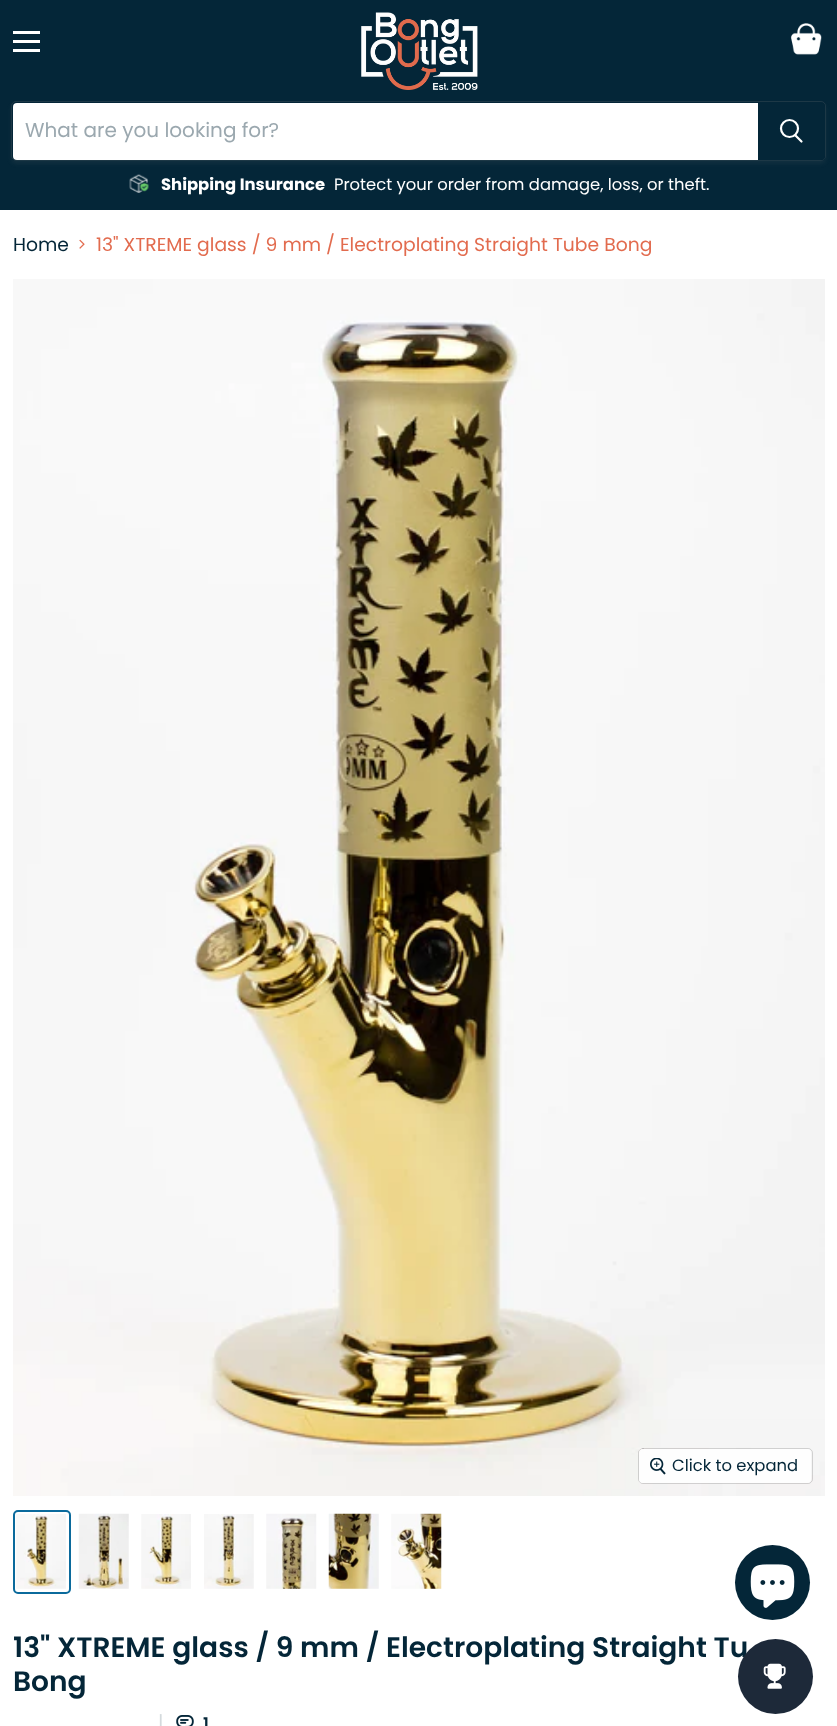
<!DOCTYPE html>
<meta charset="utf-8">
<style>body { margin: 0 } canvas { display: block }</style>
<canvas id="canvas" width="837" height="1726"></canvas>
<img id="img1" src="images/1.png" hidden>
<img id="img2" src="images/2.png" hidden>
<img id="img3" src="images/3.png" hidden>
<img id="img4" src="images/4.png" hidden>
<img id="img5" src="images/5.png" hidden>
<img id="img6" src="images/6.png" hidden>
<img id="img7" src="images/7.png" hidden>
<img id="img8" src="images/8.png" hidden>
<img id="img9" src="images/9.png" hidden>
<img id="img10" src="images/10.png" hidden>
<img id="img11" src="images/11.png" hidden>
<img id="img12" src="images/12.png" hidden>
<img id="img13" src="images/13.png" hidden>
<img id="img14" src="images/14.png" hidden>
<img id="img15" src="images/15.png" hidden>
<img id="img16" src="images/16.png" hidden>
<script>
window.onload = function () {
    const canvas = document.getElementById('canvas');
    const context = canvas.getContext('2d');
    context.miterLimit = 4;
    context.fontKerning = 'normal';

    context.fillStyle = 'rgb(255, 255, 255)';
    context.fillRect(0, 0, 837, 1726);
    context.fillStyle = 'rgb(4, 38, 56)';
    context.fillRect(0, 0, 837, 210);
    context.fillStyle = 'rgb(255, 255, 255)';
    context.fillRect(13, 31, 27, 3);
    context.fillRect(13, 40, 27, 3);
    context.fillRect(13, 49, 27, 3);
    context.drawImage(document.getElementById('img1'), 790, 23, 32, 32);
    context.drawImage(document.getElementById('img2'), 361, 12, 117, 78);
    context.save();
    context.beginPath();
    context.moveTo(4, 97);
    context.lineTo(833, 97);
    context.lineTo(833, 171);
    context.lineTo(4, 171);
    context.closePath();
    context.moveTo(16, 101);
    context.lineTo(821, 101);
    context.bezierCurveTo(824, 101, 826, 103, 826, 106);
    context.lineTo(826, 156);
    context.bezierCurveTo(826, 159, 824, 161, 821, 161);
    context.lineTo(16, 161);
    context.bezierCurveTo(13, 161, 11, 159, 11, 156);
    context.lineTo(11, 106);
    context.bezierCurveTo(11, 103, 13, 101, 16, 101);
    context.closePath();
    context.clip('evenodd');
    context.fillStyle = 'rgba(128, 128, 128, 0.11)';
    context.filter = 'blur(2px)';
    context.beginPath();
    context.roundRect(11, 104, 815, 60, 5);
    context.fill();
    context.filter = 'none';
    context.restore();
    context.beginPath();
    context.roundRect(11.5, 101.5, 814, 59, 4.5);
    context.strokeStyle = 'rgba(128, 128, 128, 0.2)';
    context.stroke();
    context.beginPath();
    context.roundRect(13, 103, 745, 57, [4, 0, 0, 4]);
    context.fill();
    context.fillStyle = 'rgb(4, 38, 56)';
    context.beginPath();
    context.roundRect(758, 103, 67, 57, [0, 4, 4, 0]);
    context.fill();
    context.beginPath();
    context.moveTo(801.5, 141.5);
    context.lineTo(795.5, 135.5);
    context.strokeStyle = 'rgb(255, 255, 255)';
    context.lineWidth = 2.2;
    context.lineCap = 'round';
    context.stroke();
    context.beginPath();
    context.arc(789.5, 128.5, 8.5, 0, 2 * Math.PI);
    context.stroke();
    context.drawImage(document.getElementById('img3'), 129, 174, 20, 19);
    context.drawImage(document.getElementById('img4'), 79, 239, 6, 10);
    context.drawImage(document.getElementById('img5'), 13, 279, 812, 1217);
    context.beginPath();
    context.roundRect(638.5, 1448.5, 174, 35, 4.5);
    context.strokeStyle = 'rgba(0, 0, 0, 0.15)';
    context.lineWidth = 1;
    context.stroke();
    context.fillStyle = 'rgba(255, 255, 255, 0.9)';
    context.beginPath();
    context.roundRect(639, 1449, 172, 34, 4);
    context.fill();
    context.drawImage(document.getElementById('img6'), 650, 1458, 16, 17);
    context.beginPath();
    context.roundRect(14, 1511, 56, 82, 4);
    context.strokeStyle = 'rgb(11, 106, 156)';
    context.lineWidth = 2;
    context.stroke();
    context.drawImage(document.getElementById('img7'), 16, 1514, 50, 75);
    context.drawImage(document.getElementById('img8'), 78, 1513, 51, 76);
    context.drawImage(document.getElementById('img9'), 141, 1514, 50, 75);
    context.drawImage(document.getElementById('img10'), 204, 1514, 50, 75);
    context.drawImage(document.getElementById('img11'), 266, 1513, 51, 76);
    context.drawImage(document.getElementById('img12'), 328, 1513, 51, 76);
    context.drawImage(document.getElementById('img13'), 391, 1513, 51, 76);
    context.drawImage(document.getElementById('img14'), 176, 1715, 18, 11);
    context.fillStyle = 'rgb(4, 38, 56)';
    context.beginPath();
    context.arc(772.5, 1582.5, 37.5, 0, 2 * Math.PI);
    context.fill();
    context.drawImage(document.getElementById('img15'), 750, 1564, 45, 44);
    context.font = '20px Poppins';
    context.fillStyle = 'rgb(155, 168, 175)';
    context.fillText('What are you looking for?', 25, 137);
    context.font = 'bold 16.4px Poppins';
    context.fillStyle = 'rgb(255, 255, 255)';
    context.fillText('Shipping Insurance', 161, 190);
    context.font = '16.4px Poppins';
    context.fillText('Protect your order from damage, loss, or theft.', 334, 190);
    context.font = '18.75px Poppins';
    context.fillStyle = 'rgb(4, 38, 56)';
    context.fillText('Home', 13, 251);
    context.fillStyle = 'rgb(226, 107, 78)';
    context.fillText('13" XTREME glass / 9 mm / Electroplating Straight Tube Bong', 96, 251);
    context.font = '16.4px Poppins';
    context.fillStyle = 'rgb(4, 38, 56)';
    context.fillText('Click to expand', 672, 1471);
    context.font = '600 28.1px Poppins';
    context.fillText('13" XTREME glass / 9 mm / Electroplating Straight Tu', 13, 1657);
    context.fillText('Bong', 13, 1691);
    context.font = '18.75px Poppins';
    context.fillStyle = 'rgb(212, 218, 221)';
    context.fillText('|', 158, 1729);
    context.font = '600 16px Poppins';
    context.fillStyle = 'rgb(4, 38, 56)';
    context.fillText('1', 203, 1729);
    context.fillStyle = 'rgb(29, 41, 57)';
    context.beginPath();
    context.arc(775.5, 1676.5, 37.5, 0, 2 * Math.PI);
    context.fill();
    context.drawImage(document.getElementById('img16'), 763, 1663, 23, 26);
};
</script>
